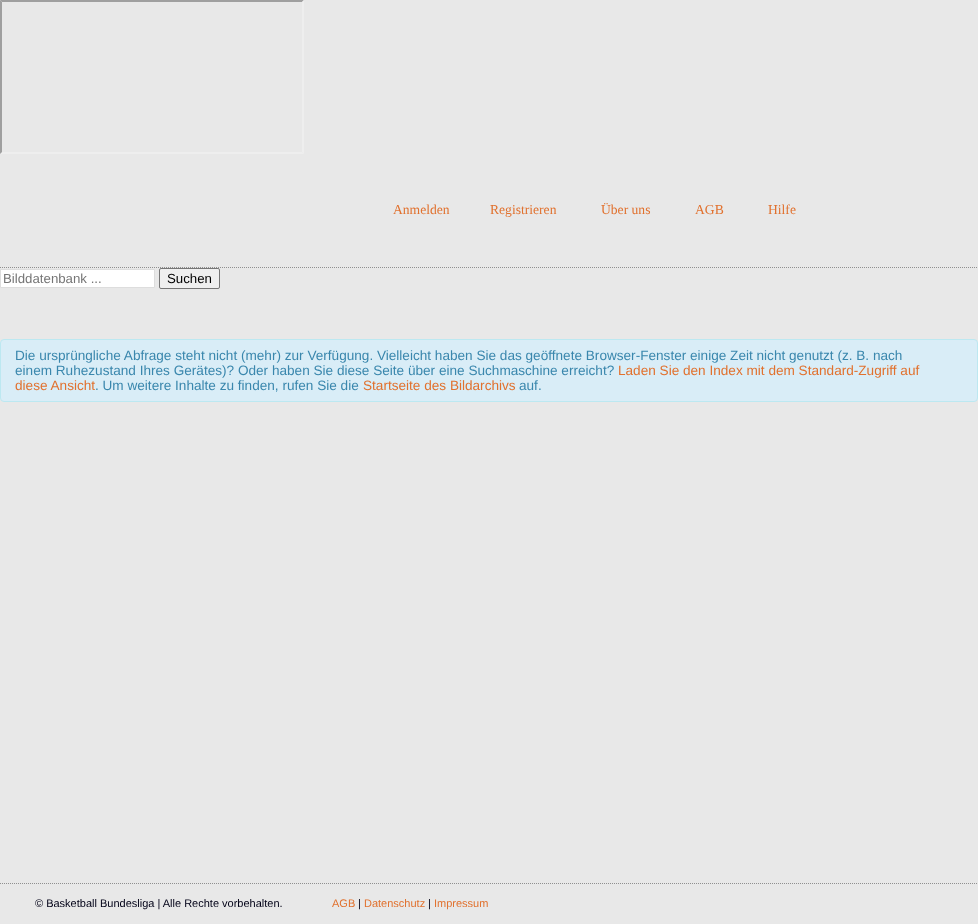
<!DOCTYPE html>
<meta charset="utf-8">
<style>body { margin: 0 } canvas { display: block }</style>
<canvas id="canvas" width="978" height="924"></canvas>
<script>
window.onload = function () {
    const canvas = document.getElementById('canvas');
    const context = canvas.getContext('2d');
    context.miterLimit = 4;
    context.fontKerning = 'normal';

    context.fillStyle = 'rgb(232, 232, 232)';
    context.fillRect(0, 0, 978, 924);
    context.fillStyle = 'rgb(159, 159, 159)';
    context.beginPath();
    context.moveTo(0, 0);
    context.lineTo(304, 0);
    context.lineTo(302, 2);
    context.lineTo(2, 2);
    context.closePath();
    context.fill();
    context.fillStyle = 'rgb(238, 238, 238)';
    context.beginPath();
    context.moveTo(304, 0);
    context.lineTo(304, 154);
    context.lineTo(302, 152);
    context.lineTo(302, 2);
    context.closePath();
    context.fill();
    context.beginPath();
    context.moveTo(304, 154);
    context.lineTo(0, 154);
    context.lineTo(2, 152);
    context.lineTo(302, 152);
    context.closePath();
    context.fill();
    context.fillStyle = 'rgb(159, 159, 159)';
    context.beginPath();
    context.moveTo(0, 154);
    context.lineTo(0, 0);
    context.lineTo(2, 2);
    context.lineTo(2, 152);
    context.closePath();
    context.fill();
    context.beginPath();
    context.moveTo(0, 267.5);
    context.lineTo(978, 267.5);
    context.strokeStyle = 'rgb(143, 143, 143)';
    context.setLineDash([1, 1]);
    context.stroke();
    context.fillStyle = 'rgb(255, 255, 255)';
    context.beginPath();
    context.rect(0.5, 269.5, 154, 18);
    context.fill();
    context.strokeStyle = 'rgb(221, 221, 221)';
    context.setLineDash([]);
    context.stroke();
    context.fillStyle = 'rgb(239, 239, 239)';
    context.beginPath();
    context.roundRect(159.5, 268.5, 60, 20, 1.5);
    context.fill();
    context.strokeStyle = 'rgb(118, 118, 118)';
    context.stroke();
    context.fillStyle = 'rgb(217, 237, 247)';
    context.beginPath();
    context.roundRect(0.5, 339.5, 977, 62, 3.5);
    context.fill();
    context.strokeStyle = 'rgb(188, 232, 241)';
    context.stroke();
    context.beginPath();
    context.moveTo(0, 883.5);
    context.lineTo(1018, 883.5);
    context.strokeStyle = 'rgb(143, 143, 143)';
    context.setLineDash([1, 1]);
    context.stroke();
    context.font = '13.6px Liberation Serif';
    context.fillStyle = 'rgb(225, 113, 46)';
    context.fillText('Anmelden', 393, 214);
    context.fillText('Registrieren', 490, 214);
    context.fillText('Über uns', 601, 214);
    context.fillText('AGB', 695, 214);
    context.fillText('Hilfe', 768, 214);
    context.font = '13.25px Liberation Sans';
    context.fillStyle = 'rgb(117, 117, 117)';
    context.fillText('Bilddatenbank ...', 3, 283);
    context.fillStyle = 'rgb(0, 0, 0)';
    context.fillText('Suchen', 167, 283);
    context.font = '13.6px Liberation Sans';
    context.fillStyle = 'rgb(58, 135, 173)';
    context.fillText('Die ursprüngliche Abfrage steht nicht (mehr) zur Verfügung. Vielleicht haben Sie das geöffnete Browser-Fenster einige Zeit nicht genutzt (z. B. nach', 15, 360);
    context.fillText('einem Ruhezustand Ihres Gerätes)? Oder haben Sie diese Seite über eine Suchmaschine erreicht?', 15, 375);
    context.fillStyle = 'rgb(225, 113, 46)';
    context.fillText('Laden Sie den Index mit dem Standard-Zugriff auf', 618, 375);
    context.fillText('diese Ansicht', 15, 390);
    context.fillStyle = 'rgb(58, 135, 173)';
    context.fillText('. Um weitere Inhalte zu finden, rufen Sie die', 95, 390);
    context.fillStyle = 'rgb(225, 113, 46)';
    context.fillText('Startseite des Bildarchivs', 363, 390);
    context.fillStyle = 'rgb(58, 135, 173)';
    context.fillText('auf.', 519, 390);
    context.font = '11px Liberation Sans';
    context.fillStyle = 'rgb(0, 0, 22)';
    context.fillText('© Basketball Bundesliga | Alle Rechte vorbehalten.', 35, 907);
    context.fillStyle = 'rgb(225, 113, 46)';
    context.fillText('AGB', 332, 907);
    context.fillStyle = 'rgb(0, 0, 22)';
    context.fillText('|', 358, 907);
    context.fillStyle = 'rgb(225, 113, 46)';
    context.fillText('Datenschutz', 364, 907);
    context.fillStyle = 'rgb(0, 0, 22)';
    context.fillText('|', 428, 907);
    context.fillStyle = 'rgb(225, 113, 46)';
    context.fillText('Impressum', 434, 907);
};
</script>
